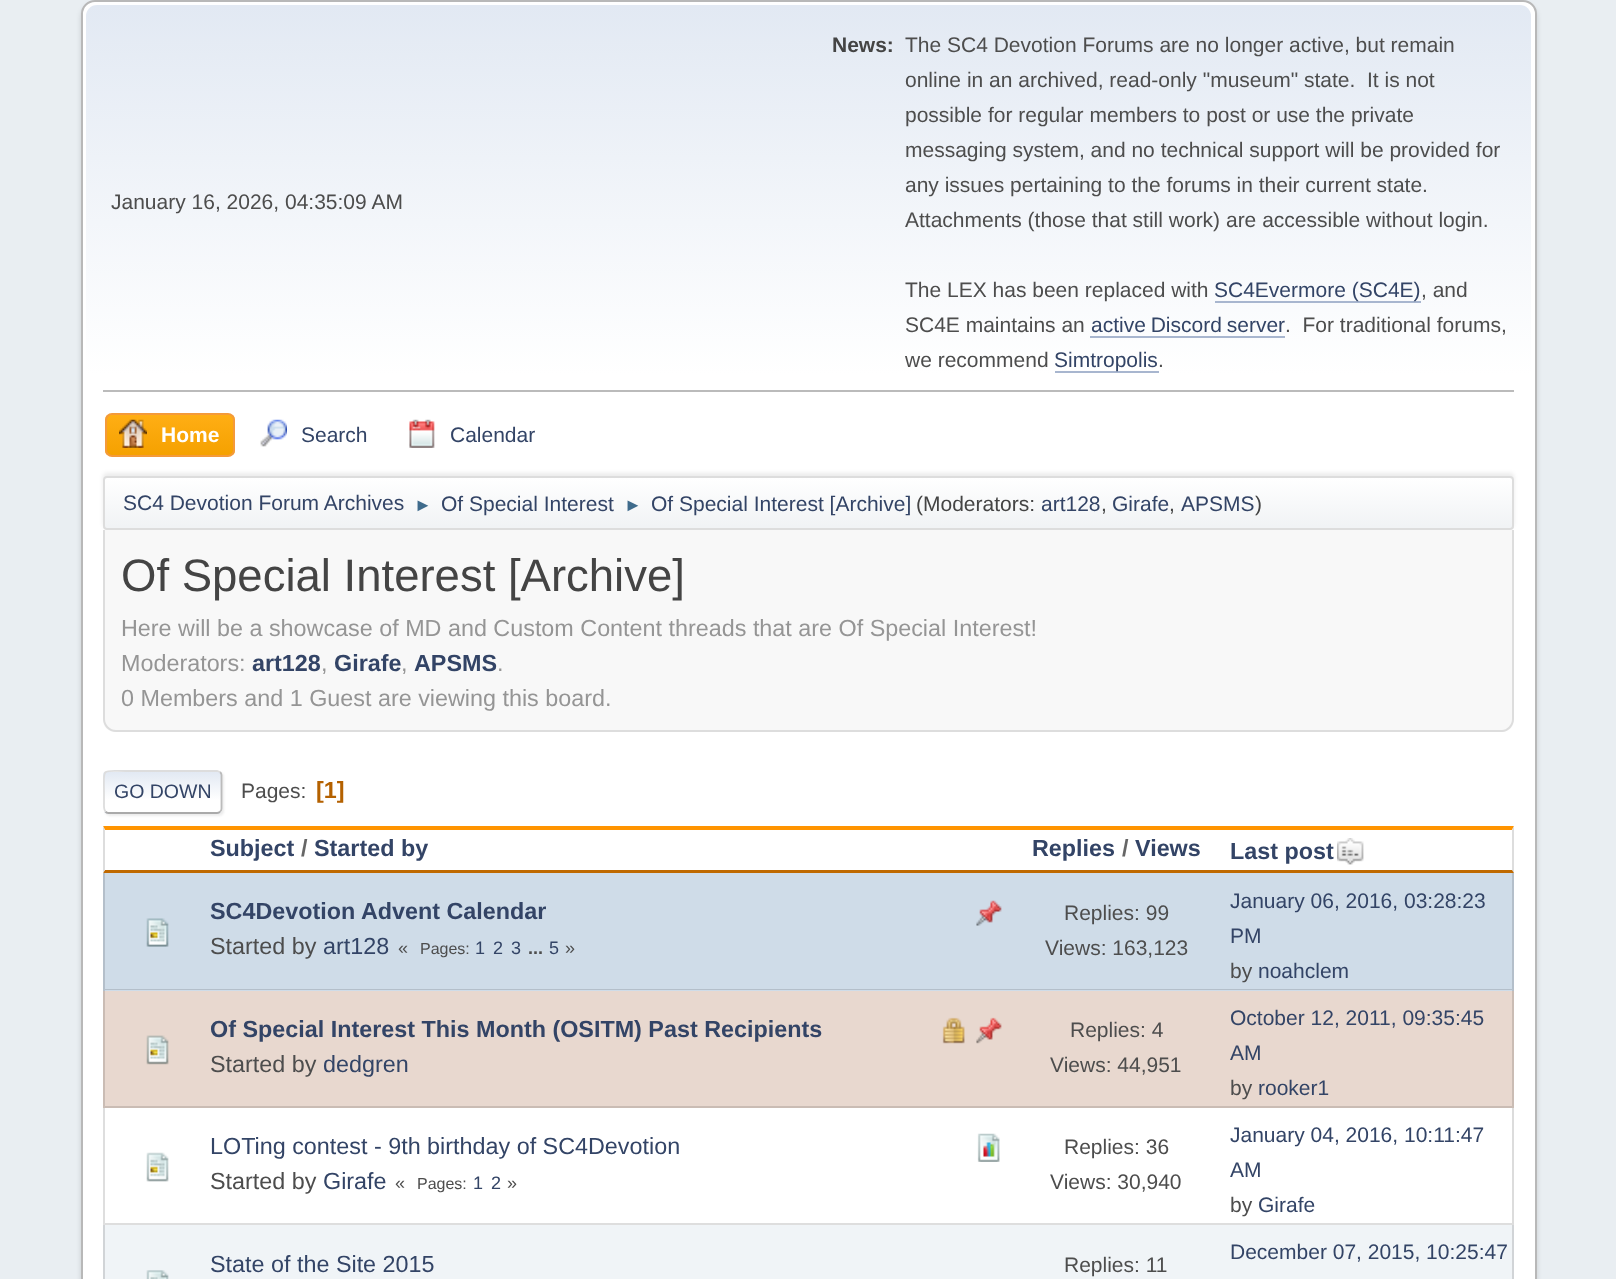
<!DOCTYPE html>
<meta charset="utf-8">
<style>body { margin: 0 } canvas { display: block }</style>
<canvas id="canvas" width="1616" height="1279"></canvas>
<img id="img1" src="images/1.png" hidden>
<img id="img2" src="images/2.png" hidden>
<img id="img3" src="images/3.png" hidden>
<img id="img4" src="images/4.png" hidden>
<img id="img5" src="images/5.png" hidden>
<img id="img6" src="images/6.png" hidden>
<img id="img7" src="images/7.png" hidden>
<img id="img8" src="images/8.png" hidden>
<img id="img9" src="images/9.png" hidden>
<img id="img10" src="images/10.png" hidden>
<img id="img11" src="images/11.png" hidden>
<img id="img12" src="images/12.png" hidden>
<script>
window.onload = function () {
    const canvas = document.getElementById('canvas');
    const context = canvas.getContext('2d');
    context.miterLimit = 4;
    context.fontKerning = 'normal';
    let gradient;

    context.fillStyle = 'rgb(233, 238, 242)';
    context.fillRect(0, 0, 1616, 1279);
    context.fillStyle = 'rgba(0, 0, 0, 0.14)';
    context.filter = 'blur(2.5px)';
    context.beginPath();
    context.roundRect(81, 4, 1456, 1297, 14);
    context.fill();
    context.filter = 'none';
    context.fillStyle = 'rgb(255, 255, 255)';
    context.beginPath();
    context.roundRect(82, 1, 1454, 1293, 13);
    context.fill();
    context.strokeStyle = 'rgb(184, 184, 184)';
    context.lineWidth = 2;
    context.stroke();
    gradient = context.createLinearGradient(809, 5.2, 809, 534);
    gradient.addColorStop(0, 'rgb(226, 233, 243)');
    gradient.addColorStop(0.7, 'rgb(255, 255, 255)');
    context.fillStyle = gradient;
    context.beginPath();
    context.roundRect(86, 5, 1445, 529, [11, 11, 0, 0]);
    context.fill();
    context.fillStyle = 'rgb(187, 187, 187)';
    context.fillRect(103, 390, 1411, 2);
    context.fillStyle = 'rgb(168, 182, 207)';
    context.fillRect(1215, 301, 206, 2);
    context.fillRect(1090, 336, 195, 2);
    context.fillRect(1055, 371, 104, 2);
    context.save();
    context.beginPath();
    context.roundRect(105, 413, 130, 44, 7);
    context.clip();
    gradient = context.createLinearGradient(170, 415, 170, 455);
    gradient.addColorStop(0, 'rgb(255, 174, 20)');
    gradient.addColorStop(1, 'rgb(245, 161, 0)');
    context.fillStyle = gradient;
    context.fillRect(105, 415, 130, 40);
    context.restore();
    context.beginPath();
    context.roundRect(106, 414, 128, 42, 6);
    context.strokeStyle = 'rgb(244, 154, 58)';
    context.stroke();
    context.drawImage(document.getElementById('img1'), 119, 419, 28, 29);
    context.drawImage(document.getElementById('img2'), 260, 419, 27, 28);
    context.drawImage(document.getElementById('img3'), 409, 419, 26, 29);
    context.fillStyle = 'rgba(0, 0, 0, 0.08)';
    context.filter = 'blur(2px)';
    context.beginPath();
    context.roundRect(103, 473, 1411, 54, 4);
    context.fill();
    context.filter = 'none';
    context.save();
    context.beginPath();
    context.roundRect(103, 476, 1411, 54, 4);
    context.clip();
    gradient = context.createLinearGradient(809, 478, 809, 529);
    gradient.addColorStop(0, 'rgb(255, 255, 255)');
    gradient.addColorStop(0.95, 'rgb(241, 243, 245)');
    context.fillStyle = gradient;
    context.fillRect(103, 478, 1411, 51);
    context.restore();
    context.beginPath();
    context.roundRect(104, 477, 1409, 52, 3);
    context.strokeStyle = 'rgb(221, 221, 221)';
    context.stroke();
    context.fillStyle = 'rgb(248, 248, 248)';
    context.beginPath();
    context.roundRect(103, 530, 1411, 202, [0, 0, 12, 12]);
    context.fill();
    context.fillStyle = 'rgb(221, 221, 221)';
    context.beginPath();
    context.moveTo(103, 530);
    context.lineTo(1514, 530);
    context.lineTo(1514, 719);
    context.bezierCurveTo(1514, 726, 1508, 732, 1502, 732);
    context.lineTo(116, 732);
    context.bezierCurveTo(109, 732, 103, 726, 103, 719);
    context.closePath();
    context.moveTo(105, 530);
    context.lineTo(1512, 530);
    context.lineTo(1512, 719);
    context.bezierCurveTo(1512, 725, 1507, 730, 1502, 730);
    context.lineTo(116, 730);
    context.bezierCurveTo(110, 730, 105, 725, 105, 719);
    context.closePath();
    context.fill('evenodd');
    context.fillStyle = 'rgba(221, 221, 221, 0.57)';
    context.filter = 'blur(1px)';
    context.beginPath();
    context.roundRect(105, 772, 119, 44, 5);
    context.fill();
    context.filter = 'none';
    context.fillStyle = 'rgb(255, 255, 255)';
    context.beginPath();
    context.roundRect(103, 770, 119, 44, 5);
    context.fill();
    context.save();
    context.beginPath();
    context.roundRect(103, 770, 119, 44, 5);
    context.clip();
    gradient = context.createLinearGradient(163, 772, 163, 812);
    gradient.addColorStop(0, 'rgb(226, 233, 243)');
    gradient.addColorStop(0.7, 'rgb(255, 255, 255)');
    context.fillStyle = gradient;
    context.fillRect(103, 772, 119, 40);
    gradient = context.createLinearGradient(163, 812, 163, 852);
    gradient.addColorStop(0, 'rgb(226, 233, 243)');
    gradient.addColorStop(0.7, 'rgb(255, 255, 255)');
    context.fillStyle = gradient;
    context.fillRect(103, 812, 119, 2);
    context.restore();
    context.beginPath();
    context.moveTo(220, 772);
    context.bezierCurveTo(221, 773, 221.5, 774, 221.5, 775);
    context.lineTo(221.5, 808.5);
    context.bezierCurveTo(221.5, 809.5, 221, 811, 220, 811.5);
    context.strokeStyle = 'rgb(187, 187, 187)';
    context.lineWidth = 1.8;
    context.stroke();
    context.beginPath();
    context.moveTo(220, 811.5);
    context.bezierCurveTo(219.5, 812.5, 218, 813, 217, 813);
    context.lineTo(108.5, 813);
    context.bezierCurveTo(107.5, 813, 106, 812.5, 105.5, 811.5);
    context.strokeStyle = 'rgb(170, 170, 170)';
    context.stroke();
    context.beginPath();
    context.moveTo(105.5, 811.5);
    context.bezierCurveTo(103.5, 809.5, 104, 805.5, 104, 803);
    context.lineTo(104, 792);
    context.bezierCurveTo(104, 767, 100.5, 771, 126.5, 771);
    context.lineTo(217, 771);
    context.lineTo(220, 772);
    context.strokeStyle = 'rgb(221, 221, 221)';
    context.stroke();
    context.fillStyle = 'rgb(255, 148, 0)';
    context.beginPath();
    context.moveTo(103, 826);
    context.lineTo(1514, 826);
    context.lineTo(1512, 830);
    context.lineTo(105, 830);
    context.closePath();
    context.fill();
    context.fillStyle = 'rgb(221, 221, 221)';
    context.beginPath();
    context.moveTo(1514, 826);
    context.lineTo(1514, 873);
    context.lineTo(1512, 870);
    context.lineTo(1512, 830);
    context.closePath();
    context.fill();
    context.fillStyle = 'rgb(191, 105, 0)';
    context.beginPath();
    context.moveTo(1514, 873);
    context.lineTo(103, 873);
    context.lineTo(105, 870);
    context.lineTo(1512, 870);
    context.closePath();
    context.fill();
    context.fillStyle = 'rgb(221, 221, 221)';
    context.beginPath();
    context.moveTo(103, 873);
    context.lineTo(103, 826);
    context.lineTo(105, 830);
    context.lineTo(105, 870);
    context.closePath();
    context.fill();
    context.drawImage(document.getElementById('img4'), 1337, 838, 27, 27);
    context.fillStyle = 'rgb(207, 220, 232)';
    context.fillRect(103, 873, 1411, 118);
    context.fillStyle = 'rgb(180, 191, 202)';
    context.beginPath();
    context.moveTo(1514, 873);
    context.lineTo(1514, 990);
    context.lineTo(1512, 989);
    context.lineTo(1512, 873);
    context.closePath();
    context.fill();
    context.fillStyle = 'rgba(0, 0, 0, 0.13)';
    context.beginPath();
    context.moveTo(1514, 990);
    context.lineTo(103, 990);
    context.lineTo(105, 989);
    context.lineTo(1512, 989);
    context.closePath();
    context.fill();
    context.beginPath();
    context.moveTo(103, 990);
    context.lineTo(103, 873);
    context.lineTo(105, 873);
    context.lineTo(105, 989);
    context.closePath();
    context.fill();
    context.drawImage(document.getElementById('img5'), 146, 918, 23, 29);
    context.drawImage(document.getElementById('img6'), 976, 900, 26, 26);
    context.fillStyle = 'rgb(232, 216, 207)';
    context.fillRect(103, 991, 1411, 117);
    context.fillStyle = 'rgba(0, 0, 0, 0.13)';
    context.beginPath();
    context.moveTo(1514, 990);
    context.lineTo(1514, 1108);
    context.lineTo(1512, 1106);
    context.lineTo(1512, 990);
    context.closePath();
    context.fill();
    context.beginPath();
    context.moveTo(1514, 1108);
    context.lineTo(103, 1108);
    context.lineTo(105, 1106);
    context.lineTo(1512, 1106);
    context.closePath();
    context.fill();
    context.beginPath();
    context.moveTo(103, 1108);
    context.lineTo(103, 990);
    context.lineTo(105, 990);
    context.lineTo(105, 1106);
    context.closePath();
    context.fill();
    context.drawImage(document.getElementById('img7'), 146, 1035, 23, 30);
    context.drawImage(document.getElementById('img8'), 942, 1017, 23, 27);
    context.drawImage(document.getElementById('img9'), 976, 1017, 26, 27);
    context.fillStyle = 'rgb(220, 220, 220)';
    context.beginPath();
    context.moveTo(1514, 1108);
    context.lineTo(1514, 1225);
    context.lineTo(1512, 1223);
    context.lineTo(1512, 1108);
    context.closePath();
    context.fill();
    context.fillStyle = 'rgba(0, 0, 0, 0.13)';
    context.beginPath();
    context.moveTo(1514, 1225);
    context.lineTo(103, 1225);
    context.lineTo(105, 1223);
    context.lineTo(1512, 1223);
    context.closePath();
    context.fill();
    context.beginPath();
    context.moveTo(103, 1225);
    context.lineTo(103, 1108);
    context.lineTo(105, 1108);
    context.lineTo(105, 1223);
    context.closePath();
    context.fill();
    context.drawImage(document.getElementById('img10'), 146, 1152, 23, 30);
    context.drawImage(document.getElementById('img11'), 977, 1133, 23, 29);
    context.fillStyle = 'rgb(240, 244, 247)';
    context.fillRect(105, 1225, 1407, 54);
    context.fillStyle = 'rgb(209, 212, 215)';
    context.beginPath();
    context.moveTo(1514, 1225);
    context.lineTo(1514, 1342);
    context.lineTo(1512, 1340);
    context.lineTo(1512, 1225);
    context.closePath();
    context.fill();
    context.beginPath();
    context.moveTo(103, 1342);
    context.lineTo(103, 1225);
    context.lineTo(105, 1225);
    context.lineTo(105, 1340);
    context.closePath();
    context.fill();
    context.drawImage(document.getElementById('img12'), 146, 1270, 23, 9);
    context.font = '21px Liberation Sans';
    context.fillStyle = 'rgb(77, 77, 77)';
    context.fillText('January 16, 2026, 04:35:09 AM', 111, 209);
    context.font = 'bold 21px Liberation Sans';
    context.fillStyle = 'rgb(68, 68, 68)';
    context.fillText('News:', 832, 52);
    context.font = '21px Liberation Sans';
    context.fillStyle = 'rgb(77, 77, 77)';
    context.fillText('The SC4 Devotion Forums are no longer active, but remain', 905, 52);
    context.fillText('online in an archived, read-only "museum" state.  It is not', 905, 87);
    context.fillText('possible for regular members to post or use the private', 905, 122);
    context.fillText('messaging system, and no technical support will be provided for', 905, 157);
    context.fillText('any issues pertaining to the forums in their current state.', 905, 192);
    context.fillText('Attachments (those that still work) are accessible without login.', 905, 227);
    context.fillText('The LEX has been replaced with', 905, 297);
    context.fillStyle = 'rgb(51, 68, 102)';
    context.fillText('SC4Evermore (SC4E)', 1214, 297);
    context.fillStyle = 'rgb(77, 77, 77)';
    context.fillText(', and', 1421, 297);
    context.fillText('SC4E maintains an', 905, 332);
    context.wordSpacing = '-1px';
    context.fillStyle = 'rgb(51, 68, 102)';
    context.fillText('active Discord server', 1091, 332);
    context.wordSpacing = '0px';
    context.fillStyle = 'rgb(77, 77, 77)';
    context.fillText('.  For traditional forums,', 1285, 332);
    context.fillText('we recommend', 905, 367);
    context.fillStyle = 'rgb(51, 68, 102)';
    context.fillText('Simtropolis', 1054, 367);
    context.fillStyle = 'rgb(77, 77, 77)';
    context.fillText('.', 1158, 367);
    context.font = 'bold 21px Liberation Sans';
    context.fillStyle = 'rgb(255, 255, 255)';
    context.fillText('Home', 161, 442);
    context.font = '21px Liberation Sans';
    context.fillStyle = 'rgb(51, 68, 102)';
    context.fillText('Search', 301, 442);
    context.fillText('Calendar', 450, 442);
    context.fillText('SC4 Devotion Forum Archives', 123, 510);
    context.font = '18px Liberation Sans';
    context.fillStyle = 'rgb(63, 107, 140)';
    context.fillText('►', 414, 511);
    context.font = '21px Liberation Sans';
    context.fillStyle = 'rgb(51, 68, 102)';
    context.fillText('Of Special Interest', 441, 511);
    context.font = '18px Liberation Sans';
    context.fillStyle = 'rgb(63, 107, 140)';
    context.fillText('►', 624, 511);
    context.font = '21px Liberation Sans';
    context.fillStyle = 'rgb(51, 68, 102)';
    context.fillText('Of Special Interest [Archive]', 651, 511);
    context.fillStyle = 'rgb(68, 68, 68)';
    context.fillText('(Moderators:', 916, 511);
    context.fillStyle = 'rgb(51, 68, 102)';
    context.fillText('art128', 1041, 511);
    context.fillStyle = 'rgb(68, 68, 68)';
    context.fillText(',', 1101, 511);
    context.fillStyle = 'rgb(51, 68, 102)';
    context.fillText('Girafe', 1112, 511);
    context.fillStyle = 'rgb(68, 68, 68)';
    context.fillText(',', 1169, 511);
    context.fillStyle = 'rgb(51, 68, 102)';
    context.fillText('APSMS', 1181, 511);
    context.fillStyle = 'rgb(68, 68, 68)';
    context.fillText(')', 1255, 511);
    context.font = '45.5px Liberation Sans';
    context.fillText('Of Special Interest [Archive]', 121, 591);
    context.font = '23.35px Liberation Sans';
    context.fillStyle = 'rgb(149, 149, 149)';
    context.fillText('Here will be a showcase of MD and Custom Content threads that are Of Special Interest!', 121, 636);
    context.fillText('Moderators:', 121, 671);
    context.font = 'bold 23.35px Liberation Sans';
    context.fillStyle = 'rgb(51, 68, 102)';
    context.fillText('art128', 252, 671);
    context.font = '23.35px Liberation Sans';
    context.fillStyle = 'rgb(149, 149, 149)';
    context.fillText(',', 321, 671);
    context.font = 'bold 23.35px Liberation Sans';
    context.fillStyle = 'rgb(51, 68, 102)';
    context.fillText('Girafe', 334, 671);
    context.font = '23.35px Liberation Sans';
    context.fillStyle = 'rgb(149, 149, 149)';
    context.fillText(',', 401, 671);
    context.font = 'bold 23.35px Liberation Sans';
    context.fillStyle = 'rgb(51, 68, 102)';
    context.fillText('APSMS', 414, 671);
    context.font = '23.35px Liberation Sans';
    context.fillStyle = 'rgb(149, 149, 149)';
    context.fillText('.', 497, 671);
    context.fillText('0 Members and 1 Guest are viewing this board.', 121, 706);
    context.font = '19.5px Liberation Sans';
    context.fillStyle = 'rgb(51, 68, 102)';
    context.fillText('GO DOWN', 114, 798);
    context.font = '21px Liberation Sans';
    context.fillStyle = 'rgb(77, 77, 77)';
    context.fillText('Pages:', 241, 798);
    context.font = 'bold 23.35px Liberation Sans';
    context.fillStyle = 'rgb(180, 97, 0)';
    context.fillText('[1]', 316, 798);
    context.fillStyle = 'rgb(51, 68, 102)';
    context.fillText('Subject', 210, 856);
    context.fillStyle = 'rgb(102, 102, 102)';
    context.fillText('/', 301, 856);
    context.fillStyle = 'rgb(51, 68, 102)';
    context.fillText('Started by', 314, 856);
    context.fillText('Replies', 1032, 856);
    context.fillStyle = 'rgb(102, 102, 102)';
    context.fillText('/', 1122, 856);
    context.fillStyle = 'rgb(51, 68, 102)';
    context.fillText('Views', 1135, 856);
    context.fillText('Last post', 1230, 859);
    context.fillText('SC4Devotion Advent Calendar', 210, 919);
    context.font = '23.35px Liberation Sans';
    context.fillStyle = 'rgb(77, 77, 77)';
    context.fillText('Started by', 210, 954);
    context.fillStyle = 'rgb(51, 68, 102)';
    context.fillText('art128', 323, 954);
    context.font = '18px Liberation Sans';
    context.fillStyle = 'rgb(77, 77, 77)';
    context.fillText('«', 398, 954);
    context.font = '16px Liberation Sans';
    context.fillText('Pages:', 420, 954);
    context.font = '18px Liberation Sans';
    context.fillStyle = 'rgb(51, 68, 102)';
    context.fillText('1', 475, 954);
    context.fillText('2', 493, 954);
    context.fillText('3', 511, 954);
    context.font = 'bold 18px Liberation Sans';
    context.fillStyle = 'rgb(77, 77, 77)';
    context.fillText('...', 528, 954);
    context.font = '18px Liberation Sans';
    context.fillStyle = 'rgb(51, 68, 102)';
    context.fillText('5', 549, 954);
    context.fillStyle = 'rgb(77, 77, 77)';
    context.fillText('»', 565, 954);
    context.font = '21px Liberation Sans';
    context.fillText('Replies: 99', 1064, 920);
    context.fillText('Views: 163,123', 1045, 955);
    context.fillStyle = 'rgb(51, 68, 102)';
    context.fillText('January 06, 2016, 03:28:23', 1230, 908);
    context.fillText('PM', 1230, 943);
    context.fillStyle = 'rgb(77, 77, 77)';
    context.fillText('by', 1230, 978);
    context.fillStyle = 'rgb(51, 68, 102)';
    context.fillText('noahclem', 1258, 978);
    context.font = 'bold 23.35px Liberation Sans';
    context.fillText('Of Special Interest This Month (OSITM) Past Recipients', 210, 1037);
    context.font = '23.35px Liberation Sans';
    context.fillStyle = 'rgb(77, 77, 77)';
    context.fillText('Started by', 210, 1072);
    context.fillStyle = 'rgb(51, 68, 102)';
    context.fillText('dedgren', 323, 1072);
    context.font = '21px Liberation Sans';
    context.fillStyle = 'rgb(77, 77, 77)';
    context.fillText('Replies: 4', 1070, 1037);
    context.fillText('Views: 44,951', 1050, 1072);
    context.fillStyle = 'rgb(51, 68, 102)';
    context.fillText('October 12, 2011, 09:35:45', 1230, 1025);
    context.fillText('AM', 1230, 1060);
    context.fillStyle = 'rgb(77, 77, 77)';
    context.fillText('by', 1230, 1095);
    context.fillStyle = 'rgb(51, 68, 102)';
    context.fillText('rooker1', 1258, 1095);
    context.font = '23.35px Liberation Sans';
    context.fillText('LOTing contest - 9th birthday of SC4Devotion', 210, 1154);
    context.fillStyle = 'rgb(77, 77, 77)';
    context.fillText('Started by', 210, 1189);
    context.fillStyle = 'rgb(51, 68, 102)';
    context.fillText('Girafe', 323, 1189);
    context.font = '18px Liberation Sans';
    context.fillStyle = 'rgb(77, 77, 77)';
    context.fillText('«', 395, 1189);
    context.font = '16px Liberation Sans';
    context.fillText('Pages:', 417, 1189);
    context.font = '18px Liberation Sans';
    context.fillStyle = 'rgb(51, 68, 102)';
    context.fillText('1', 473, 1189);
    context.fillText('2', 491, 1189);
    context.fillStyle = 'rgb(77, 77, 77)';
    context.fillText('»', 507, 1189);
    context.font = '21px Liberation Sans';
    context.fillText('Replies: 36', 1064, 1154);
    context.fillText('Views: 30,940', 1050, 1189);
    context.fillStyle = 'rgb(51, 68, 102)';
    context.fillText('January 04, 2016, 10:11:47', 1230, 1142);
    context.fillText('AM', 1230, 1177);
    context.fillStyle = 'rgb(77, 77, 77)';
    context.fillText('by', 1230, 1212);
    context.fillStyle = 'rgb(51, 68, 102)';
    context.fillText('Girafe', 1258, 1212);
    context.fillText('December 07, 2015, 10:25:47', 1230, 1259);
    context.font = '23.35px Liberation Sans';
    context.fillText('State of the Site 2015', 210, 1272);
    context.font = '21px Liberation Sans';
    context.fillStyle = 'rgb(77, 77, 77)';
    context.fillText('Replies: 11', 1064, 1272);
};
</script>
